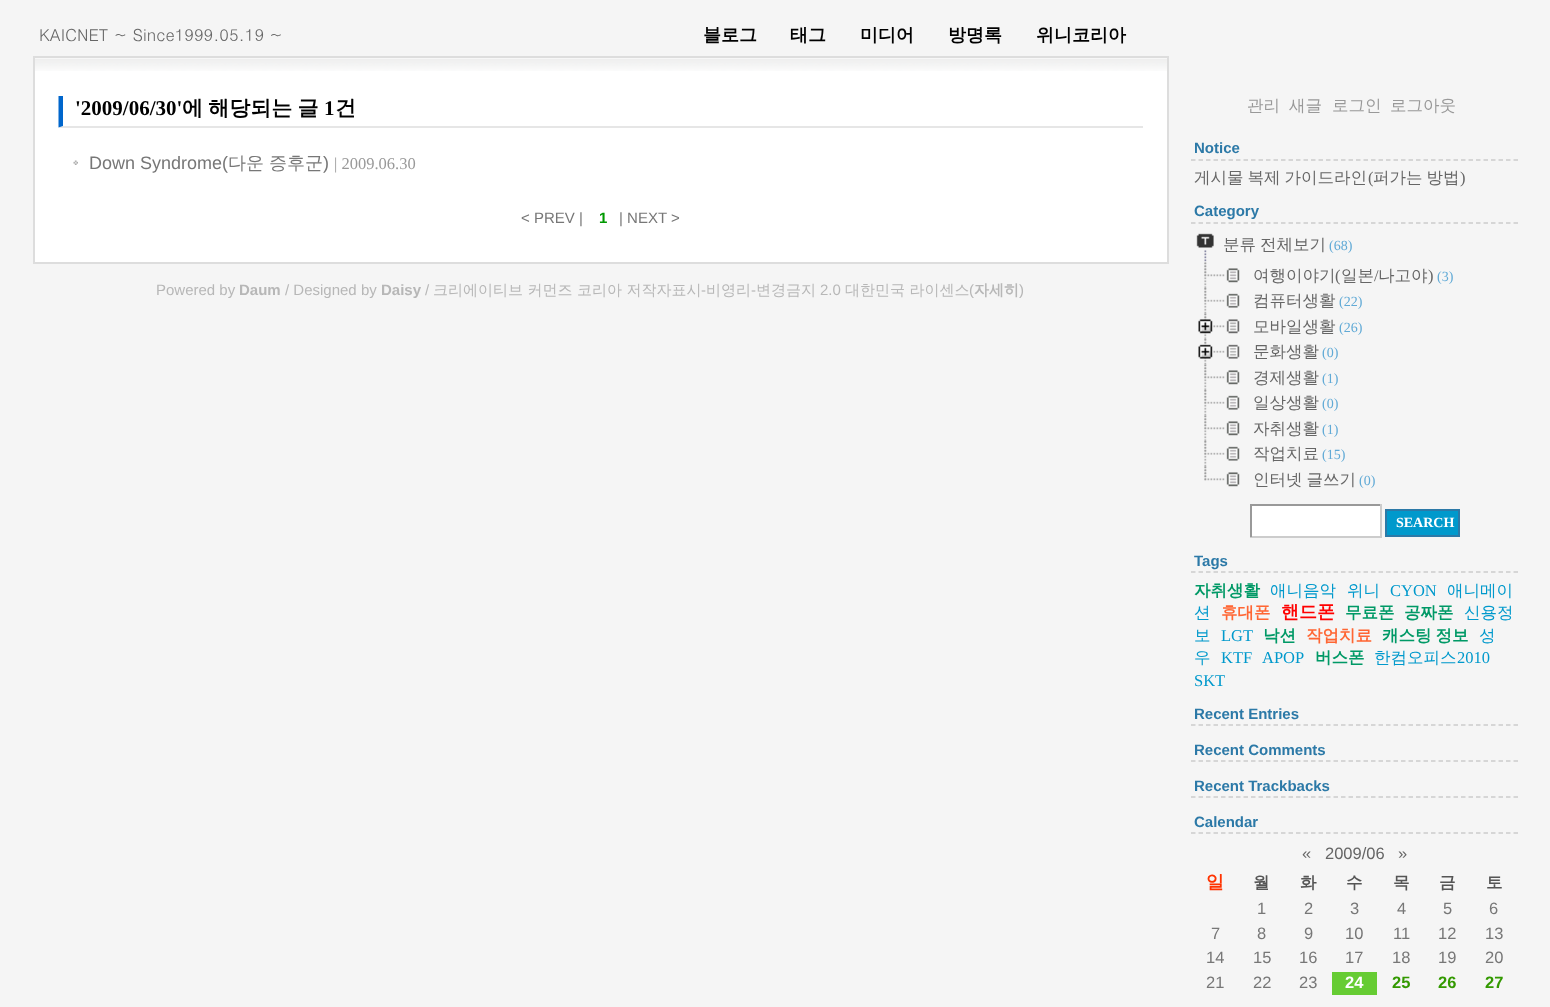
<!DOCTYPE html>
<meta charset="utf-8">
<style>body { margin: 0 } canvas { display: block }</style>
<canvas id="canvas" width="1550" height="1007"></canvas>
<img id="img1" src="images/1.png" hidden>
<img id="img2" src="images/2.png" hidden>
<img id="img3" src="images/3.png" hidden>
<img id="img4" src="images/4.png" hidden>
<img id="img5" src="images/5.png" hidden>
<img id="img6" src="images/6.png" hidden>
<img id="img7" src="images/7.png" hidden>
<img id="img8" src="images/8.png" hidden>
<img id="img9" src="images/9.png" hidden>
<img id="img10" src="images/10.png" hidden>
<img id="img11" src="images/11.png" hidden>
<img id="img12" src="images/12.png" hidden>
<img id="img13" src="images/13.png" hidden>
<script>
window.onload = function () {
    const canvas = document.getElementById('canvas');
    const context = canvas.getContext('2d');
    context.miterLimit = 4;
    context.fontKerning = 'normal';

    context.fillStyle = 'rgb(245, 245, 245)';
    context.fillRect(0, 0, 1550, 1007);
    context.fillStyle = 'rgb(255, 255, 255)';
    context.fillRect(35, 71, 1132, 191);
    context.drawImage(document.getElementById('img1'), 35, 58, 1132, 13);
    context.strokeStyle = 'rgb(221, 221, 221)';
    context.lineWidth = 2;
    context.strokeRect(34, 57, 1134, 206);
    context.fillStyle = 'rgb(230, 230, 230)';
    context.beginPath();
    context.moveTo(1143, 128);
    context.lineTo(58, 128);
    context.lineTo(63, 126);
    context.lineTo(1143, 126);
    context.closePath();
    context.fill();
    context.fillStyle = 'rgb(0, 102, 204)';
    context.beginPath();
    context.moveTo(58.5, 127.5);
    context.lineTo(58.5, 96);
    context.lineTo(63, 96);
    context.lineTo(63, 126);
    context.closePath();
    context.fill();
    context.drawImage(document.getElementById('img2'), 73, 160, 5, 5);
    context.beginPath();
    context.moveTo(1191, 160);
    context.lineTo(1518, 160);
    context.strokeStyle = 'rgb(204, 204, 204)';
    context.lineWidth = 1.5;
    context.setLineDash([4.5, 3]);
    context.stroke();
    context.beginPath();
    context.moveTo(1191, 223);
    context.lineTo(1518, 223);
    context.stroke();
    context.drawImage(document.getElementById('img3'), 1196, 233, 18, 29);
    context.drawImage(document.getElementById('img4'), 1204, 262, 3, 26);
    context.drawImage(document.getElementById('img5'), 1204, 262, 36, 21);
    context.drawImage(document.getElementById('img6'), 1204, 288, 3, 26);
    context.drawImage(document.getElementById('img7'), 1204, 288, 36, 20);
    context.drawImage(document.getElementById('img8'), 1204, 313, 3, 26);
    context.drawImage(document.getElementById('img9'), 1198, 313, 42, 21);
    context.drawImage(document.getElementById('img6'), 1204, 339, 3, 26);
    context.drawImage(document.getElementById('img10'), 1198, 339, 42, 20);
    context.drawImage(document.getElementById('img8'), 1204, 364, 3, 26);
    context.drawImage(document.getElementById('img11'), 1204, 364, 36, 21);
    context.drawImage(document.getElementById('img6'), 1204, 390, 3, 26);
    context.drawImage(document.getElementById('img7'), 1204, 390, 36, 20);
    context.drawImage(document.getElementById('img8'), 1204, 415, 3, 26);
    context.drawImage(document.getElementById('img11'), 1204, 415, 36, 21);
    context.drawImage(document.getElementById('img6'), 1204, 441, 3, 26);
    context.drawImage(document.getElementById('img7'), 1204, 441, 36, 20);
    context.drawImage(document.getElementById('img12'), 1204, 466, 3, 15);
    context.drawImage(document.getElementById('img13'), 1204, 466, 36, 21);
    context.fillStyle = 'rgb(255, 255, 255)';
    context.fillRect(1252, 506, 128, 30);
    context.fillStyle = 'rgb(153, 153, 153)';
    context.fillRect(1250, 504, 132, 2);
    context.fillStyle = 'rgb(204, 204, 204)';
    context.fillRect(1380, 504, 2, 33);
    context.fillRect(1250, 536, 132, 2);
    context.fillStyle = 'rgb(153, 153, 153)';
    context.fillRect(1250, 504, 2, 33);
    context.fillStyle = 'rgb(0, 153, 204)';
    context.beginPath();
    context.rect(1386, 510, 73, 26);
    context.fill();
    context.strokeStyle = 'rgb(44, 121, 167)';
    context.lineWidth = 2;
    context.setLineDash([]);
    context.stroke();
    context.beginPath();
    context.moveTo(1191, 572);
    context.lineTo(1518, 572);
    context.strokeStyle = 'rgb(204, 204, 204)';
    context.lineWidth = 1.5;
    context.setLineDash([4.5, 3]);
    context.stroke();
    context.beginPath();
    context.moveTo(1191, 725);
    context.lineTo(1518, 725);
    context.stroke();
    context.beginPath();
    context.moveTo(1191, 761);
    context.lineTo(1518, 761);
    context.stroke();
    context.beginPath();
    context.moveTo(1191, 797);
    context.lineTo(1518, 797);
    context.stroke();
    context.beginPath();
    context.moveTo(1191, 833);
    context.lineTo(1518, 833);
    context.stroke();
    context.fillStyle = 'rgb(102, 204, 51)';
    context.fillRect(1332, 972, 45, 23);
    context.font = '16.5px Dotum';
    context.fillStyle = 'rgb(102, 102, 102)';
    context.fillText('KAICNET ~ Since1999.05.19 ~', 39, 41);
    context.font = 'bold 18px WenQuanYi Zen Hei';
    context.fillStyle = 'rgb(0, 0, 0)';
    context.fillText('블로그', 703, 41);
    context.fillText('태그', 790, 41);
    context.fillText('미디어', 860, 41);
    context.fillText('방명록', 948, 41);
    context.fillText('위니코리아', 1036, 41);
    context.font = 'bold 21px Liberation Serif';
    context.fillText('\'2009/06/30\'', 75, 115);
    context.wordSpacing = '-1px';
    context.font = 'bold 21px WenQuanYi Zen Hei';
    context.fillText('에 해당되는 글', 182, 115);
    context.wordSpacing = '0px';
    context.font = 'bold 21px Liberation Serif';
    context.fillText('1', 324, 115);
    context.font = 'bold 21px WenQuanYi Zen Hei';
    context.fillText('건', 335, 115);
    context.font = '18px Liberation Sans';
    context.fillStyle = 'rgb(119, 119, 119)';
    context.fillText('Down Syndrome(', 89, 169);
    context.font = '500 18px WenQuanYi Zen Hei';
    context.fillText('다운', 228, 169);
    context.fillText('증후군', 269, 169);
    context.font = '18px Liberation Sans';
    context.fillText(')', 323, 169);
    context.font = '16.5px Liberation Serif';
    context.fillStyle = 'rgb(153, 153, 153)';
    context.fillText('| 2009.06.30', 334, 169);
    context.font = '15px Liberation Sans';
    context.fillStyle = 'rgb(119, 119, 119)';
    context.fillText('< PREV |', 521, 223);
    context.font = 'bold 15px Liberation Sans';
    context.fillStyle = 'rgb(0, 153, 0)';
    context.fillText('1', 599, 223);
    context.font = '15px Liberation Sans';
    context.fillStyle = 'rgb(119, 119, 119)';
    context.fillText('| NEXT >', 619, 223);
    context.font = '500 16.5px WenQuanYi Zen Hei';
    context.fillStyle = 'rgb(153, 153, 153)';
    context.fillText('관리', 1247, 111);
    context.fillText('새글', 1289, 111);
    context.fillText('로그인', 1332, 111);
    context.fillText('로그아웃', 1390, 111);
    context.font = 'bold 15px Liberation Sans';
    context.fillStyle = 'rgb(44, 121, 167)';
    context.fillText('Notice', 1194, 153);
    context.wordSpacing = '-1px';
    context.font = '500 16.5px WenQuanYi Zen Hei';
    context.fillStyle = 'rgb(102, 102, 102)';
    context.fillText('게시물 복제 가이드라인', 1194, 183);
    context.wordSpacing = '0px';
    context.font = '16.5px Liberation Serif';
    context.fillText('(', 1368, 183);
    context.wordSpacing = '-1px';
    context.font = '500 16.5px WenQuanYi Zen Hei';
    context.fillText('퍼가는 방법', 1373, 183);
    context.wordSpacing = '0px';
    context.font = '16.5px Liberation Serif';
    context.fillText(')', 1460, 183);
    context.font = 'bold 15px Liberation Sans';
    context.fillStyle = 'rgb(44, 121, 167)';
    context.fillText('Category', 1194, 216);
    context.wordSpacing = '-1px';
    context.font = '500 16.5px WenQuanYi Zen Hei';
    context.fillStyle = 'rgb(102, 102, 102)';
    context.fillText('분류 전체보기', 1223, 250);
    context.wordSpacing = '0px';
    context.font = '14px Liberation Serif';
    context.fillStyle = 'rgb(97, 170, 214)';
    context.fillText('(68)', 1329, 250);
    context.font = '500 16.5px WenQuanYi Zen Hei';
    context.fillStyle = 'rgb(102, 102, 102)';
    context.fillText('여행이야기', 1253, 281);
    context.font = '16.5px Liberation Serif';
    context.fillText('(', 1335, 281);
    context.font = '500 16.5px WenQuanYi Zen Hei';
    context.fillText('일본', 1341, 281);
    context.font = '16.5px Liberation Serif';
    context.fillText('/', 1374, 281);
    context.font = '500 16.5px WenQuanYi Zen Hei';
    context.fillText('나고야', 1378, 281);
    context.font = '16.5px Liberation Serif';
    context.fillText(')', 1428, 281);
    context.font = '14px Liberation Serif';
    context.fillStyle = 'rgb(97, 170, 214)';
    context.fillText('(3)', 1437, 281);
    context.font = '500 16.5px WenQuanYi Zen Hei';
    context.fillStyle = 'rgb(102, 102, 102)';
    context.fillText('컴퓨터생활', 1253, 306);
    context.font = '14px Liberation Serif';
    context.fillStyle = 'rgb(97, 170, 214)';
    context.fillText('(22)', 1339, 306);
    context.font = '500 16.5px WenQuanYi Zen Hei';
    context.fillStyle = 'rgb(102, 102, 102)';
    context.fillText('모바일생활', 1253, 332);
    context.font = '14px Liberation Serif';
    context.fillStyle = 'rgb(97, 170, 214)';
    context.fillText('(26)', 1339, 332);
    context.font = '500 16.5px WenQuanYi Zen Hei';
    context.fillStyle = 'rgb(102, 102, 102)';
    context.fillText('문화생활', 1253, 357);
    context.font = '14px Liberation Serif';
    context.fillStyle = 'rgb(97, 170, 214)';
    context.fillText('(0)', 1322, 357);
    context.font = '500 16.5px WenQuanYi Zen Hei';
    context.fillStyle = 'rgb(102, 102, 102)';
    context.fillText('경제생활', 1253, 383);
    context.font = '14px Liberation Serif';
    context.fillStyle = 'rgb(97, 170, 214)';
    context.fillText('(1)', 1322, 383);
    context.font = '500 16.5px WenQuanYi Zen Hei';
    context.fillStyle = 'rgb(102, 102, 102)';
    context.fillText('일상생활', 1253, 408);
    context.font = '14px Liberation Serif';
    context.fillStyle = 'rgb(97, 170, 214)';
    context.fillText('(0)', 1322, 408);
    context.font = '500 16.5px WenQuanYi Zen Hei';
    context.fillStyle = 'rgb(102, 102, 102)';
    context.fillText('자취생활', 1253, 434);
    context.font = '14px Liberation Serif';
    context.fillStyle = 'rgb(97, 170, 214)';
    context.fillText('(1)', 1322, 434);
    context.font = '500 16.5px WenQuanYi Zen Hei';
    context.fillStyle = 'rgb(102, 102, 102)';
    context.fillText('작업치료', 1253, 459);
    context.font = '14px Liberation Serif';
    context.fillStyle = 'rgb(97, 170, 214)';
    context.fillText('(15)', 1322, 459);
    context.wordSpacing = '-1px';
    context.font = '500 16.5px WenQuanYi Zen Hei';
    context.fillStyle = 'rgb(102, 102, 102)';
    context.fillText('인터넷 글쓰기', 1253, 485);
    context.wordSpacing = '0px';
    context.font = '14px Liberation Serif';
    context.fillStyle = 'rgb(97, 170, 214)';
    context.fillText('(0)', 1359, 485);
    context.font = 'bold 14px Liberation Serif';
    context.fillStyle = 'rgb(255, 255, 255)';
    context.fillText('SEARCH', 1396, 527);
    context.font = 'bold 15px Liberation Sans';
    context.fillStyle = 'rgb(44, 121, 167)';
    context.fillText('Tags', 1194, 566);
    context.font = 'bold 16.5px WenQuanYi Zen Hei';
    context.fillStyle = 'rgb(0, 153, 102)';
    context.fillText('자취생활', 1194, 596);
    context.font = '500 16.5px WenQuanYi Zen Hei';
    context.fillStyle = 'rgb(0, 153, 204)';
    context.fillText('애니음악', 1270, 596);
    context.fillText('위니', 1347, 596);
    context.font = '16.5px Liberation Serif';
    context.fillText('CYON', 1390, 596);
    context.font = '500 16.5px WenQuanYi Zen Hei';
    context.fillText('애니메이', 1447, 596);
    context.fillText('션', 1194, 618);
    context.font = 'bold 16.5px WenQuanYi Zen Hei';
    context.fillStyle = 'rgb(255, 102, 51)';
    context.fillText('휴대폰', 1221, 618);
    context.font = 'bold 18px WenQuanYi Zen Hei';
    context.fillStyle = 'rgb(255, 0, 0)';
    context.fillText('핸드폰', 1281, 618);
    context.font = 'bold 16.5px WenQuanYi Zen Hei';
    context.fillStyle = 'rgb(0, 153, 102)';
    context.fillText('무료폰', 1345, 618);
    context.fillText('공짜폰', 1404, 618);
    context.font = '500 16.5px WenQuanYi Zen Hei';
    context.fillStyle = 'rgb(0, 153, 204)';
    context.fillText('신용정', 1464, 618);
    context.fillText('보', 1194, 641);
    context.font = '16.5px Liberation Serif';
    context.fillText('LGT', 1221, 641);
    context.font = 'bold 16.5px WenQuanYi Zen Hei';
    context.fillStyle = 'rgb(0, 153, 102)';
    context.fillText('낙션', 1263, 641);
    context.fillStyle = 'rgb(255, 102, 51)';
    context.fillText('작업치료', 1306, 641);
    context.wordSpacing = '-1px';
    context.fillStyle = 'rgb(0, 153, 102)';
    context.fillText('캐스팅 정보', 1382, 641);
    context.wordSpacing = '0px';
    context.font = '500 16.5px WenQuanYi Zen Hei';
    context.fillStyle = 'rgb(0, 153, 204)';
    context.fillText('성', 1479, 641);
    context.fillText('우', 1194, 663);
    context.font = '16.5px Liberation Serif';
    context.fillText('KTF', 1221, 663);
    context.fillText('APOP', 1262, 663);
    context.font = 'bold 16.5px WenQuanYi Zen Hei';
    context.fillStyle = 'rgb(0, 153, 102)';
    context.fillText('버스폰', 1315, 663);
    context.font = '500 16.5px WenQuanYi Zen Hei';
    context.fillStyle = 'rgb(0, 153, 204)';
    context.fillText('한컴오피스', 1374, 663);
    context.font = '16.5px Liberation Serif';
    context.fillText('2010', 1457, 663);
    context.fillText('SKT', 1194, 686);
    context.font = 'bold 15px Liberation Sans';
    context.fillStyle = 'rgb(44, 121, 167)';
    context.fillText('Recent Entries', 1194, 719);
    context.fillText('Recent Comments', 1194, 755);
    context.fillText('Recent Trackbacks', 1194, 791);
    context.fillText('Calendar', 1194, 827);
    context.font = '16.5px Liberation Sans';
    context.fillStyle = 'rgb(102, 102, 102)';
    context.fillText('«', 1302, 859);
    context.fillText('2009/06', 1325, 859);
    context.fillText('»', 1398, 859);
    context.font = 'bold 18px WenQuanYi Zen Hei';
    context.fillStyle = 'rgb(255, 51, 0)';
    context.fillText('일', 1206, 888);
    context.font = 'bold 16.5px WenQuanYi Zen Hei';
    context.fillStyle = 'rgb(85, 85, 85)';
    context.fillText('월', 1253, 888);
    context.fillText('화', 1300, 888);
    context.fillText('수', 1346, 888);
    context.fillText('목', 1393, 888);
    context.fillText('금', 1439, 888);
    context.fillText('토', 1486, 888);
    context.font = '16.5px Liberation Sans';
    context.fillStyle = 'rgb(119, 119, 119)';
    context.fillText('1', 1257, 914);
    context.fillText('2', 1304, 914);
    context.fillText('3', 1350, 914);
    context.fillText('4', 1397, 914);
    context.fillText('5', 1443, 914);
    context.fillText('6', 1489, 914);
    context.fillText('7', 1211, 939);
    context.fillText('8', 1257, 939);
    context.fillText('9', 1304, 939);
    context.fillText('10', 1345, 939);
    context.fillText('11', 1393, 939);
    context.fillText('12', 1438, 939);
    context.fillText('13', 1485, 939);
    context.fillText('14', 1206, 963);
    context.fillText('15', 1253, 963);
    context.fillText('16', 1299, 963);
    context.fillText('17', 1345, 963);
    context.fillText('18', 1392, 963);
    context.fillText('19', 1438, 963);
    context.fillText('20', 1485, 963);
    context.fillText('21', 1206, 988);
    context.fillText('22', 1253, 988);
    context.fillText('23', 1299, 988);
    context.font = 'bold 16.5px Liberation Sans';
    context.fillStyle = 'rgb(255, 255, 255)';
    context.fillText('24', 1345, 988);
    context.fillStyle = 'rgb(51, 153, 0)';
    context.fillText('25', 1392, 988);
    context.fillText('26', 1438, 988);
    context.fillText('27', 1485, 988);
    context.font = '15px Liberation Sans';
    context.fillStyle = 'rgb(183, 183, 183)';
    context.fillText('Powered by', 156, 295);
    context.font = 'bold 15px Liberation Sans';
    context.fillText('Daum', 239, 295);
    context.font = '15px Liberation Sans';
    context.fillText('/ Designed by', 285, 295);
    context.font = 'bold 15px Liberation Sans';
    context.fillText('Daisy', 381, 295);
    context.font = '15px Liberation Sans';
    context.fillText('/', 425, 295);
    context.font = '500 15px WenQuanYi Zen Hei';
    context.fillText('크리에이티브 커먼즈 코리아 저작자표시', 433, 295);
    context.font = '15px Liberation Sans';
    context.fillText('-', 701, 295);
    context.font = '500 15px WenQuanYi Zen Hei';
    context.fillText('비영리', 706, 295);
    context.font = '15px Liberation Sans';
    context.fillText('-', 751, 295);
    context.font = '500 15px WenQuanYi Zen Hei';
    context.fillText('변경금지', 756, 295);
    context.font = '15px Liberation Sans';
    context.fillText('2.0', 820, 295);
    context.font = '500 15px WenQuanYi Zen Hei';
    context.fillText('대한민국 라이센스', 845, 295);
    context.font = '15px Liberation Sans';
    context.fillText('(', 969, 295);
    context.font = 'bold 15px WenQuanYi Zen Hei';
    context.fillText('자세히', 974, 295);
    context.font = '15px Liberation Sans';
    context.fillText(')', 1019, 295);
};
</script>
